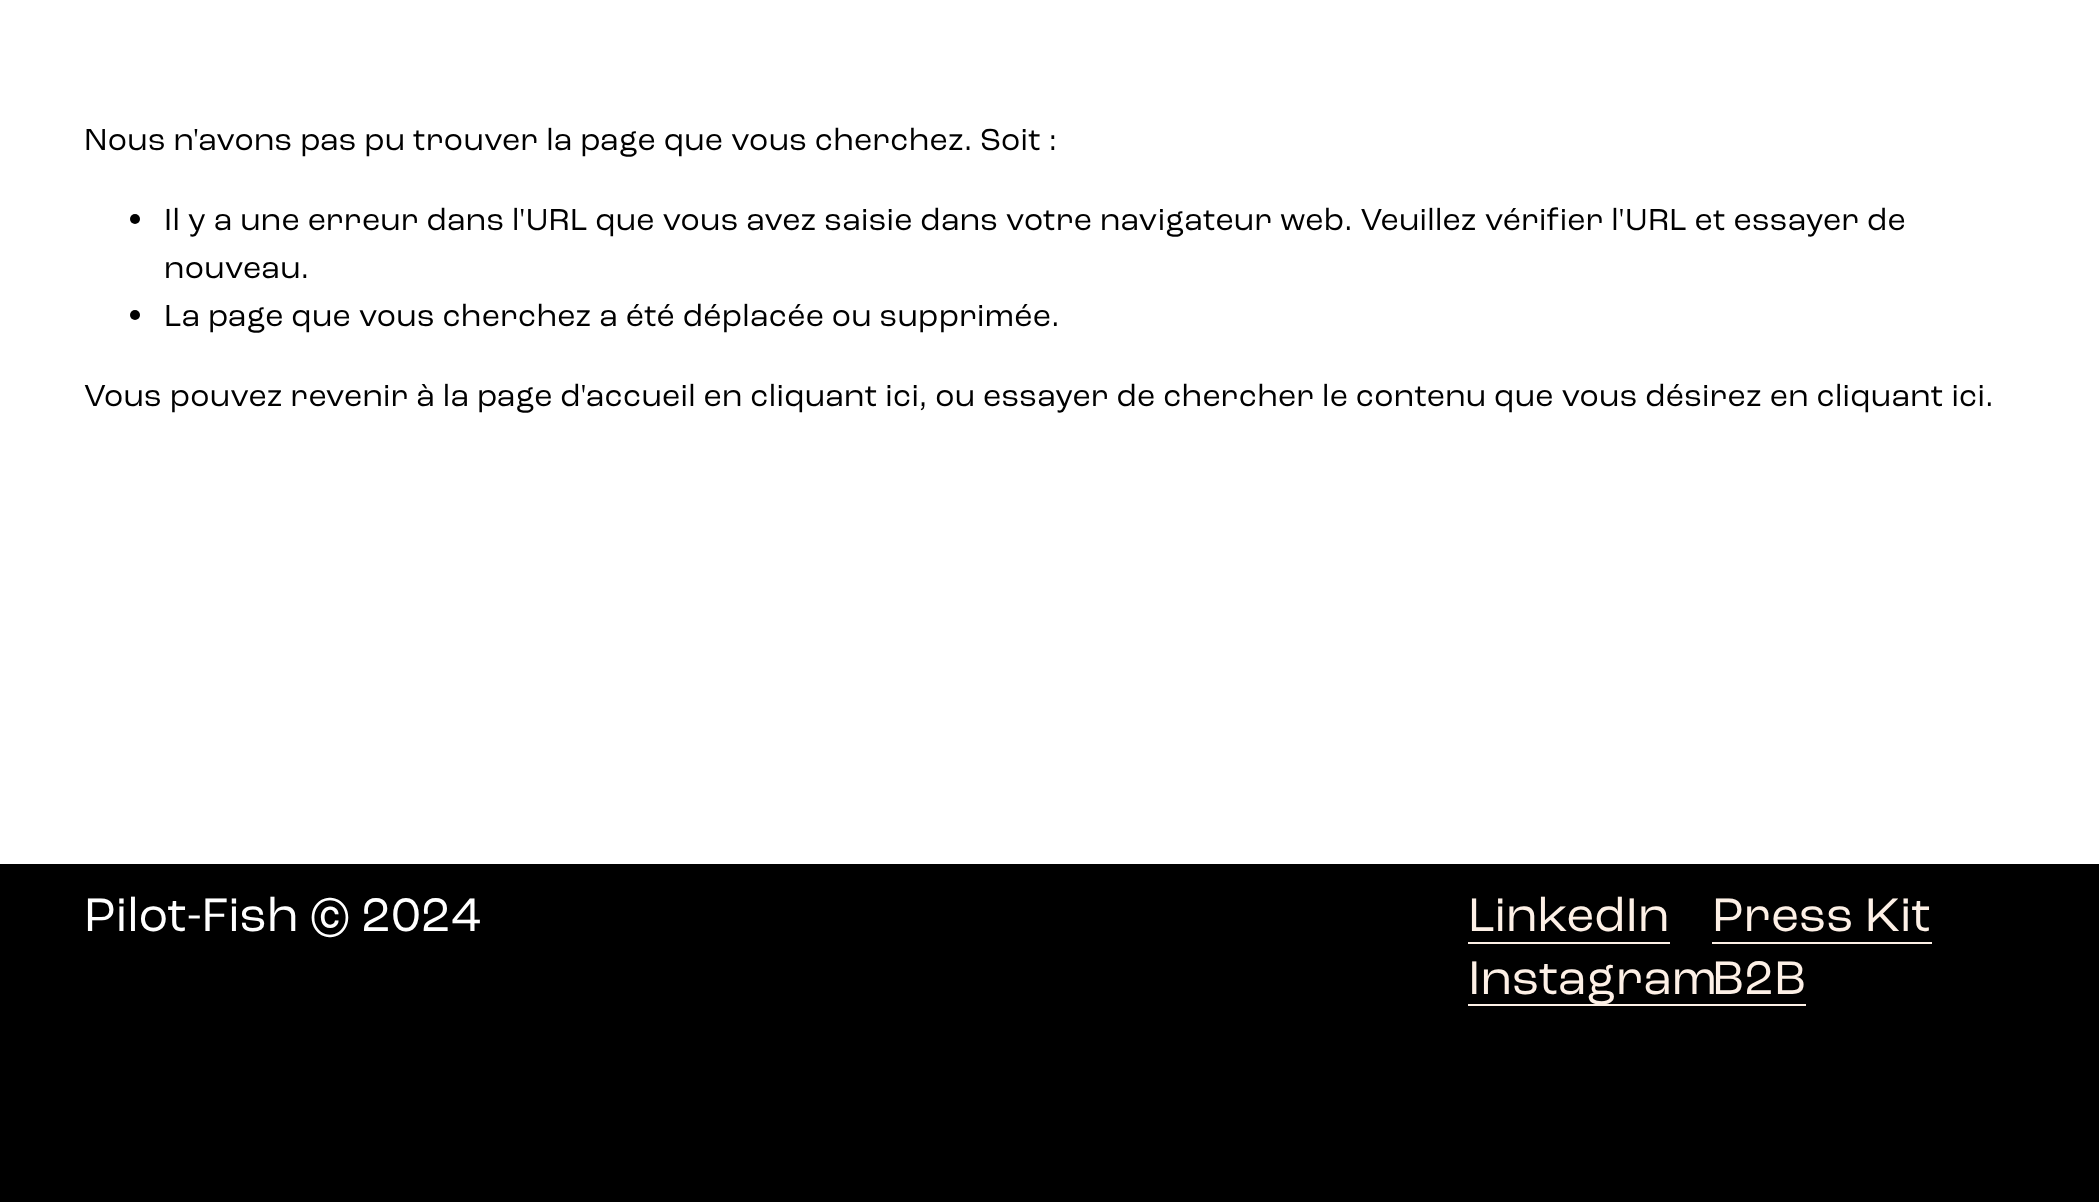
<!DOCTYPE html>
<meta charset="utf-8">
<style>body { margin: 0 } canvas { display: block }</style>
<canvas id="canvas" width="2099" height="1202"></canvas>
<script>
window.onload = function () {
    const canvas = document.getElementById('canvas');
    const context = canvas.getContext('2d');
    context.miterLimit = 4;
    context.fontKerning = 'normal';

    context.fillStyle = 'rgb(255, 255, 255)';
    context.fillRect(0, 0, 2099, 1202);
    context.fillStyle = 'rgb(0, 0, 0)';
    context.beginPath();
    context.arc(135, 219, 5, 0, 2 * Math.PI);
    context.fill();
    context.beginPath();
    context.arc(135, 315, 5, 0, 2 * Math.PI);
    context.fill();
    context.fillRect(0, 864, 2099, 338);
    context.fillStyle = 'rgb(253, 240, 230)';
    context.fillRect(1468, 942, 202, 2);
    context.fillRect(1468, 1004, 250, 2);
    context.fillRect(1712, 942, 220, 2);
    context.fillRect(1712, 1004, 94, 2);
    context.letterSpacing = '0.32px';
    context.font = '32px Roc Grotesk';
    context.fillStyle = 'rgb(0, 0, 0)';
    context.fillText('Nous n\'avons pas pu trouver la page que vous cherchez. Soit :', 84, 150);
    context.fillText('Il y a une erreur dans l\'URL que vous avez saisie dans votre navigateur web. Veuillez vérifier l\'URL et essayer de', 164, 230);
    context.fillText('nouveau.', 164, 278);
    context.fillText('La page que vous cherchez a été déplacée ou supprimée.', 164, 326);
    context.fillText('Vous pouvez revenir à la page d\'accueil en cliquant ici, ou essayer de chercher le contenu que vous désirez en cliquant ici.', 84, 406);
    context.letterSpacing = '0px';
    context.font = '49.5px Roc Grotesk';
    context.fillStyle = 'rgb(255, 255, 255)';
    context.fillText('Pilot-Fish', 84, 931);
    context.font = '800 49.5px Roc Grotesk';
    context.fillText('©', 310, 931);
    context.font = '49.5px Roc Grotesk';
    context.fillText('2024', 361, 931);
    context.fillStyle = 'rgb(253, 240, 230)';
    context.fillText('LinkedIn', 1468, 931);
    context.fillText('Instagram', 1468, 994);
    context.fillText('Press Kit', 1712, 931);
    context.fillText('B2B', 1712, 994);
};
</script>
